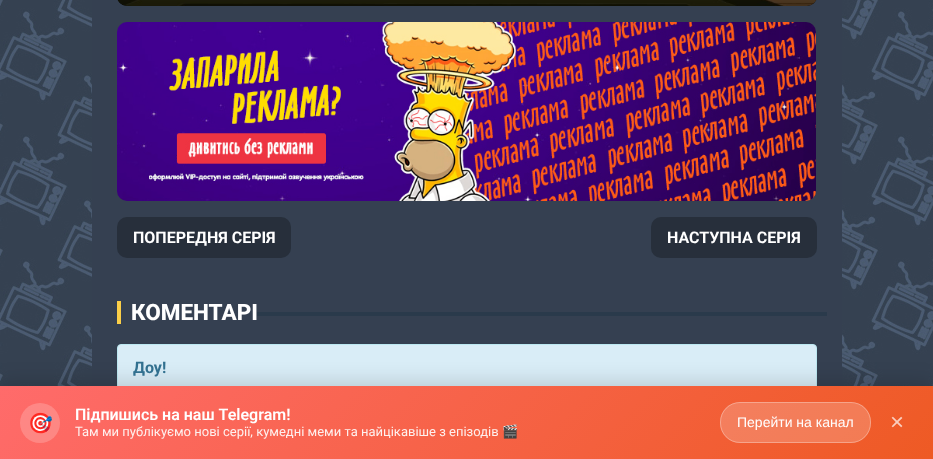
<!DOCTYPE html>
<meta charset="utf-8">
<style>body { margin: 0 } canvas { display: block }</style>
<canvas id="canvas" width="933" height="459"></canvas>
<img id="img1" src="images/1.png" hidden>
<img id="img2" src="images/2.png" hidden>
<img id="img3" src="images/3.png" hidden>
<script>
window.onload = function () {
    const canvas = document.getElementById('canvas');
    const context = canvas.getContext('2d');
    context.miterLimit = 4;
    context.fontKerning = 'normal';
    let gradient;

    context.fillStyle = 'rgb(255, 255, 255)';
    context.fillRect(0, 0, 933, 459);
    context.drawImage(document.getElementById('img1'), 0, 0, 933, 386);
    context.fillStyle = 'rgb(53, 64, 81)';
    context.fillRect(92, 0, 750, 386);
    context.drawImage(document.getElementById('img2'), 117, 0, 700, 6);
    context.drawImage(document.getElementById('img3'), 117, 22, 699, 179);
    context.fillStyle = 'rgb(39, 47, 59)';
    context.beginPath();
    context.roundRect(117, 217, 174, 41, 10);
    context.fill();
    context.beginPath();
    context.roundRect(651, 217, 166, 41, 10);
    context.fill();
    context.fillStyle = 'rgb(251, 207, 72)';
    context.fillRect(117, 301, 4, 23);
    context.fillStyle = 'rgb(42, 58, 75)';
    context.fillRect(257, 312, 570, 4);
    context.fillStyle = 'rgb(217, 237, 247)';
    context.beginPath();
    context.roundRect(117.5, 344.5, 699, 63, 3.5);
    context.fill();
    context.strokeStyle = 'rgb(188, 232, 241)';
    context.stroke();
    context.fillStyle = 'rgba(0, 0, 0, 0.15)';
    context.filter = 'blur(10px)';
    context.beginPath();
    context.rect(0, 382, 933, 73);
    context.fill();
    context.filter = 'none';
    gradient = context.createLinearGradient(215, 171, 718, 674);
    gradient.addColorStop(0, 'rgb(255, 107, 107)');
    gradient.addColorStop(1, 'rgb(238, 90, 36)');
    context.fillStyle = gradient;
    context.fillRect(0, 386, 933, 73);
    context.fillStyle = 'rgba(255, 255, 255, 0.2)';
    context.beginPath();
    context.arc(40, 423, 20, 0, 2 * Math.PI);
    context.fill();
    context.beginPath();
    context.roundRect(720, 402, 151, 41, 20);
    context.fill();
    context.beginPath();
    context.roundRect(720.5, 402.5, 150, 40, 19.5);
    context.strokeStyle = 'rgba(255, 255, 255, 0.3)';
    context.stroke();
    context.font = 'bold 16px Roboto';
    context.fillStyle = 'rgb(255, 255, 255)';
    context.fillText('ПОПЕРЕДНЯ СЕРІЯ', 133, 243);
    context.fillText('НАСТУПНА СЕРІЯ', 667, 243);
    context.font = '800 22.5px Roboto';
    context.fillText('КОМЕНТАРІ', 131, 320);
    context.font = 'bold 16px Roboto';
    context.fillStyle = 'rgb(49, 112, 143)';
    context.fillText('Доу!', 133, 373);
    context.font = '20px Noto Color Emoji';
    context.fillStyle = 'rgb(0, 0, 0)';
    context.fillText('🎯', 28, 430);
    context.font = '600 16px Roboto';
    context.fillStyle = 'rgb(255, 255, 255)';
    context.fillText('Підпишись на наш Telegram!', 75, 420);
    context.font = '13px Roboto';
    context.fillStyle = 'rgb(254, 240, 238)';
    context.fillText('Там ми публікуємо нові серії, кумедні меми та найцікавіше з епізодів', 75, 436);
    context.font = '13px Noto Color Emoji';
    context.fillText('🎬', 502, 436);
    context.font = '14px Liberation Sans';
    context.fillStyle = 'rgb(255, 255, 255)';
    context.fillText('Перейти на канал', 737, 427);
    context.font = '24px Liberation Sans';
    context.fillStyle = 'rgb(250, 206, 191)';
    context.fillText('×', 890, 430);
};
</script>
